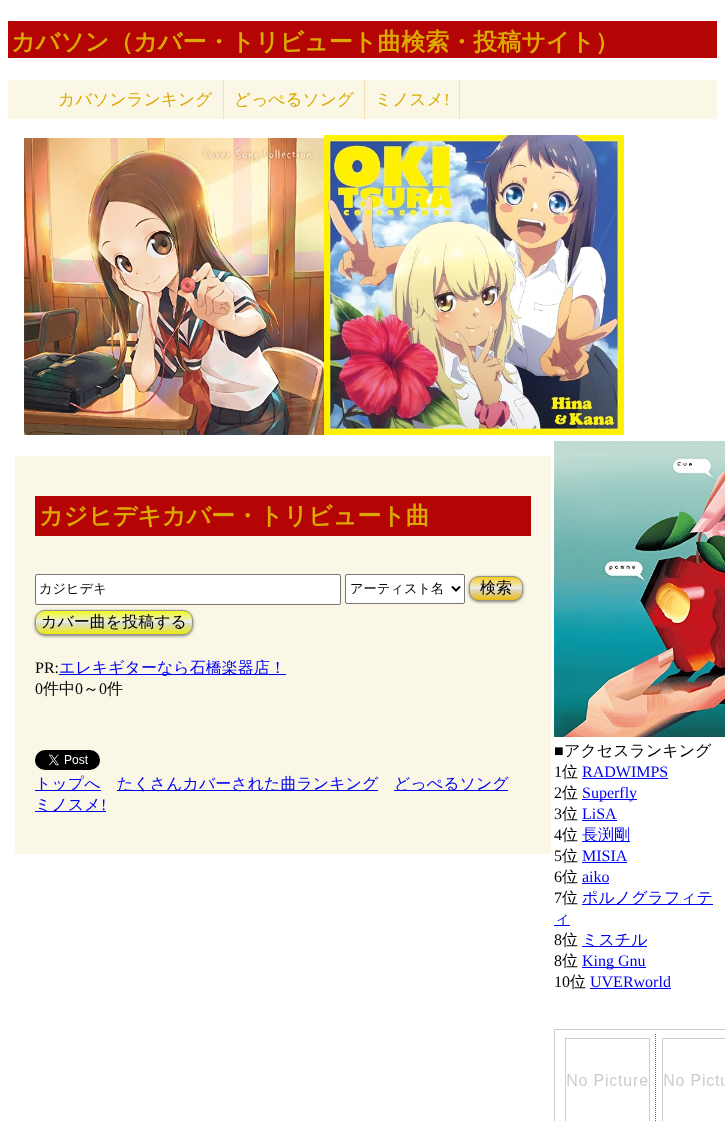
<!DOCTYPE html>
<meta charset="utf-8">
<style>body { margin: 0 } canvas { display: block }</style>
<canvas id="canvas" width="725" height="1121"></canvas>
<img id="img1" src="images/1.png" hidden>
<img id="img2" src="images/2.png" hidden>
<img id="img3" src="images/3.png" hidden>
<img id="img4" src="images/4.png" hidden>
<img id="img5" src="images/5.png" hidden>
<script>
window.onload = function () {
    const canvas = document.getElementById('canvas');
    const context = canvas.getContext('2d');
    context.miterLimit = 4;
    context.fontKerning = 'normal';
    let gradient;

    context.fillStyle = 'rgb(255, 255, 255)';
    context.fillRect(0, 0, 725, 1121);
    context.fillStyle = 'rgb(180, 4, 4)';
    context.fillRect(8, 21, 709, 37);
    context.fillStyle = 'rgb(250, 247, 231)';
    context.fillRect(8, 80, 709, 39);
    context.fillStyle = 'rgb(243, 226, 169)';
    context.fillRect(223, 80, 1, 39);
    context.fillRect(364, 80, 1, 39);
    context.fillRect(459, 80, 1, 39);
    context.drawImage(document.getElementById('img1'), 24, 138, 300, 297);
    context.drawImage(document.getElementById('img2'), 324, 135, 300, 300);
    context.fillStyle = 'rgb(250, 247, 231)';
    context.fillRect(15, 456, 536, 398);
    context.fillStyle = 'rgb(180, 4, 4)';
    context.fillRect(35, 496, 496, 40);
    context.fillStyle = 'rgb(255, 255, 255)';
    context.beginPath();
    context.roundRect(35.5, 574.5, 305, 30, 1.5);
    context.fill();
    context.strokeStyle = 'rgb(118, 118, 118)';
    context.stroke();
    context.beginPath();
    context.roundRect(345.5, 574.5, 119, 29, 1.5);
    context.fill();
    context.stroke();
    context.beginPath();
    context.moveTo(452, 586.5);
    context.lineTo(456, 590.5);
    context.lineTo(460, 586.5);
    context.strokeStyle = 'rgb(0, 0, 0)';
    context.lineWidth = 2;
    context.stroke();
    context.fillStyle = 'rgba(0, 0, 0, 0.5)';
    context.filter = 'blur(1.5px)';
    context.beginPath();
    context.roundRect(469, 577, 54, 25, 10);
    context.fill();
    context.filter = 'none';
    context.save();
    context.beginPath();
    context.roundRect(469, 576, 54, 25, 10);
    context.clip();
    gradient = context.createLinearGradient(470, 577, 470, 600);
    gradient.addColorStop(0, 'rgb(250, 206, 30)');
    gradient.addColorStop(0.5, 'rgb(235, 235, 235)');
    gradient.addColorStop(0.5, 'rgb(219, 219, 219)');
    gradient.addColorStop(1, 'rgb(235, 190, 12)');
    context.fillStyle = gradient;
    context.fillRect(469, 577, 54, 23);
    context.restore();
    context.beginPath();
    context.roundRect(469.5, 576.5, 53, 24, 9.5);
    context.strokeStyle = 'rgb(148, 148, 148)';
    context.lineWidth = 1;
    context.stroke();
    context.filter = 'blur(1.5px)';
    context.beginPath();
    context.roundRect(35, 611, 158, 25, 10);
    context.fill();
    context.filter = 'none';
    context.save();
    context.beginPath();
    context.roundRect(35, 610, 158, 25, 10);
    context.clip();
    gradient = context.createLinearGradient(36, 611, 36, 634);
    gradient.addColorStop(0, 'rgb(243, 250, 30)');
    gradient.addColorStop(0.5, 'rgb(235, 235, 235)');
    gradient.addColorStop(0.5, 'rgb(219, 219, 219)');
    gradient.addColorStop(1, 'rgb(235, 235, 12)');
    context.fillStyle = gradient;
    context.fillRect(35, 611, 158, 23);
    context.restore();
    context.beginPath();
    context.roundRect(35.5, 610.5, 157, 24, 9.5);
    context.stroke();
    context.fillStyle = 'rgb(0, 0, 238)';
    context.fillRect(59, 674, 227, 1);
    context.drawImage(document.getElementById('img3'), 35, 750, 65, 20);
    context.fillRect(35, 790, 66, 1);
    context.fillRect(117, 790, 261, 1);
    context.fillRect(394, 790, 114, 1);
    context.fillRect(35, 811, 71, 1);
    context.drawImage(document.getElementById('img4'), 554, 441, 171, 296);
    context.fillRect(582, 778, 86, 1);
    context.fillRect(582, 799, 55, 1);
    context.fillRect(582, 820, 35, 1);
    context.fillRect(582, 841, 48, 1);
    context.fillRect(582, 862, 45, 1);
    context.fillRect(582, 883, 27, 1);
    context.fillRect(582, 904, 131, 1);
    context.fillRect(554, 925, 16, 1);
    context.fillRect(582, 946, 65, 1);
    context.fillRect(582, 967, 64, 1);
    context.fillRect(590, 988, 81, 1);
    context.drawImage(document.getElementById('img5'), 554, 1029, 171, 92);
    context.font = 'bold 24px WenQuanYi Zen Hei';
    context.fillStyle = 'rgb(219, 169, 1)';
    context.fillText('カバソン（カバー・トリビュート曲検索・投稿サイト）', 11, 50);
    context.font = '500 16.75px WenQuanYi Zen Hei';
    context.fillText('カバソンランキング', 58, 105);
    context.fillText('どっぺるソング', 234, 105);
    context.fillText('ミノスメ', 375, 105);
    context.font = '16.75px Liberation Serif';
    context.fillText('!', 444, 105);
    context.font = 'bold 24px WenQuanYi Zen Hei';
    context.fillText('カジヒデキカバー・トリビュート曲', 39, 524);
    context.font = '500 13.25px WenQuanYi Zen Hei';
    context.fillStyle = 'rgb(0, 0, 0)';
    context.fillText('カジヒデキ', 39, 593);
    context.fillText('アーティスト名', 350, 593);
    context.font = '500 16px WenQuanYi Zen Hei';
    context.fillText('検索', 480, 593);
    context.fillText('カバー曲を投稿する', 41, 627);
    context.font = '16px Liberation Serif';
    context.fillText('PR:', 35, 673);
    context.font = '500 16px WenQuanYi Zen Hei';
    context.fillStyle = 'rgb(0, 0, 238)';
    context.fillText('エレキギターなら石橋楽器店！', 59, 673);
    context.font = '16px Liberation Serif';
    context.fillStyle = 'rgb(0, 0, 0)';
    context.fillText('0', 35, 694);
    context.font = '500 16px WenQuanYi Zen Hei';
    context.fillText('件中', 43, 694);
    context.font = '16px Liberation Serif';
    context.fillText('0', 75, 694);
    context.font = '500 16px WenQuanYi Zen Hei';
    context.fillText('～', 83, 694);
    context.font = '16px Liberation Serif';
    context.fillText('0', 99, 694);
    context.font = '500 16px WenQuanYi Zen Hei';
    context.fillText('件', 107, 694);
    context.fillStyle = 'rgb(0, 0, 238)';
    context.fillText('トップへ', 35, 789);
    context.fillText('たくさんカバーされた曲ランキング', 117, 789);
    context.fillText('どっぺるソング', 394, 789);
    context.fillText('ミノスメ', 35, 810);
    context.font = '16px Liberation Serif';
    context.fillText('!', 101, 810);
    context.fillStyle = 'rgb(0, 0, 0)';
    context.fillText('■', 554, 756);
    context.font = '500 16px WenQuanYi Zen Hei';
    context.fillText('アクセスランキング', 564, 756);
    context.font = '16px Liberation Serif';
    context.fillText('1', 554, 777);
    context.font = '500 16px WenQuanYi Zen Hei';
    context.fillText('位', 562, 777);
    context.font = '16px Liberation Serif';
    context.fillStyle = 'rgb(0, 0, 238)';
    context.fillText('RADWIMPS', 582, 777);
    context.fillStyle = 'rgb(0, 0, 0)';
    context.fillText('2', 554, 798);
    context.font = '500 16px WenQuanYi Zen Hei';
    context.fillText('位', 562, 798);
    context.font = '16px Liberation Serif';
    context.fillStyle = 'rgb(0, 0, 238)';
    context.fillText('Superfly', 582, 798);
    context.fillStyle = 'rgb(0, 0, 0)';
    context.fillText('3', 554, 819);
    context.font = '500 16px WenQuanYi Zen Hei';
    context.fillText('位', 562, 819);
    context.font = '16px Liberation Serif';
    context.fillStyle = 'rgb(0, 0, 238)';
    context.fillText('LiSA', 582, 819);
    context.fillStyle = 'rgb(0, 0, 0)';
    context.fillText('4', 554, 840);
    context.font = '500 16px WenQuanYi Zen Hei';
    context.fillText('位', 562, 840);
    context.fillStyle = 'rgb(0, 0, 238)';
    context.fillText('長渕剛', 582, 840);
    context.font = '16px Liberation Serif';
    context.fillStyle = 'rgb(0, 0, 0)';
    context.fillText('5', 554, 861);
    context.font = '500 16px WenQuanYi Zen Hei';
    context.fillText('位', 562, 861);
    context.font = '16px Liberation Serif';
    context.fillStyle = 'rgb(0, 0, 238)';
    context.fillText('MISIA', 582, 861);
    context.fillStyle = 'rgb(0, 0, 0)';
    context.fillText('6', 554, 882);
    context.font = '500 16px WenQuanYi Zen Hei';
    context.fillText('位', 562, 882);
    context.font = '16px Liberation Serif';
    context.fillStyle = 'rgb(0, 0, 238)';
    context.fillText('aiko', 582, 882);
    context.fillStyle = 'rgb(0, 0, 0)';
    context.fillText('7', 554, 903);
    context.font = '500 16px WenQuanYi Zen Hei';
    context.fillText('位', 562, 903);
    context.fillStyle = 'rgb(0, 0, 238)';
    context.fillText('ポルノグラフィテ', 582, 903);
    context.fillText('ィ', 554, 924);
    context.font = '16px Liberation Serif';
    context.fillStyle = 'rgb(0, 0, 0)';
    context.fillText('8', 554, 945);
    context.font = '500 16px WenQuanYi Zen Hei';
    context.fillText('位', 562, 945);
    context.fillStyle = 'rgb(0, 0, 238)';
    context.fillText('ミスチル', 582, 945);
    context.font = '16px Liberation Serif';
    context.fillStyle = 'rgb(0, 0, 0)';
    context.fillText('8', 554, 966);
    context.font = '500 16px WenQuanYi Zen Hei';
    context.fillText('位', 562, 966);
    context.font = '16px Liberation Serif';
    context.fillStyle = 'rgb(0, 0, 238)';
    context.fillText('King Gnu', 582, 966);
    context.fillStyle = 'rgb(0, 0, 0)';
    context.fillText('10', 554, 987);
    context.font = '500 16px WenQuanYi Zen Hei';
    context.fillText('位', 570, 987);
    context.font = '16px Liberation Serif';
    context.fillStyle = 'rgb(0, 0, 238)';
    context.fillText('UVERworld', 590, 987);
};
</script>
